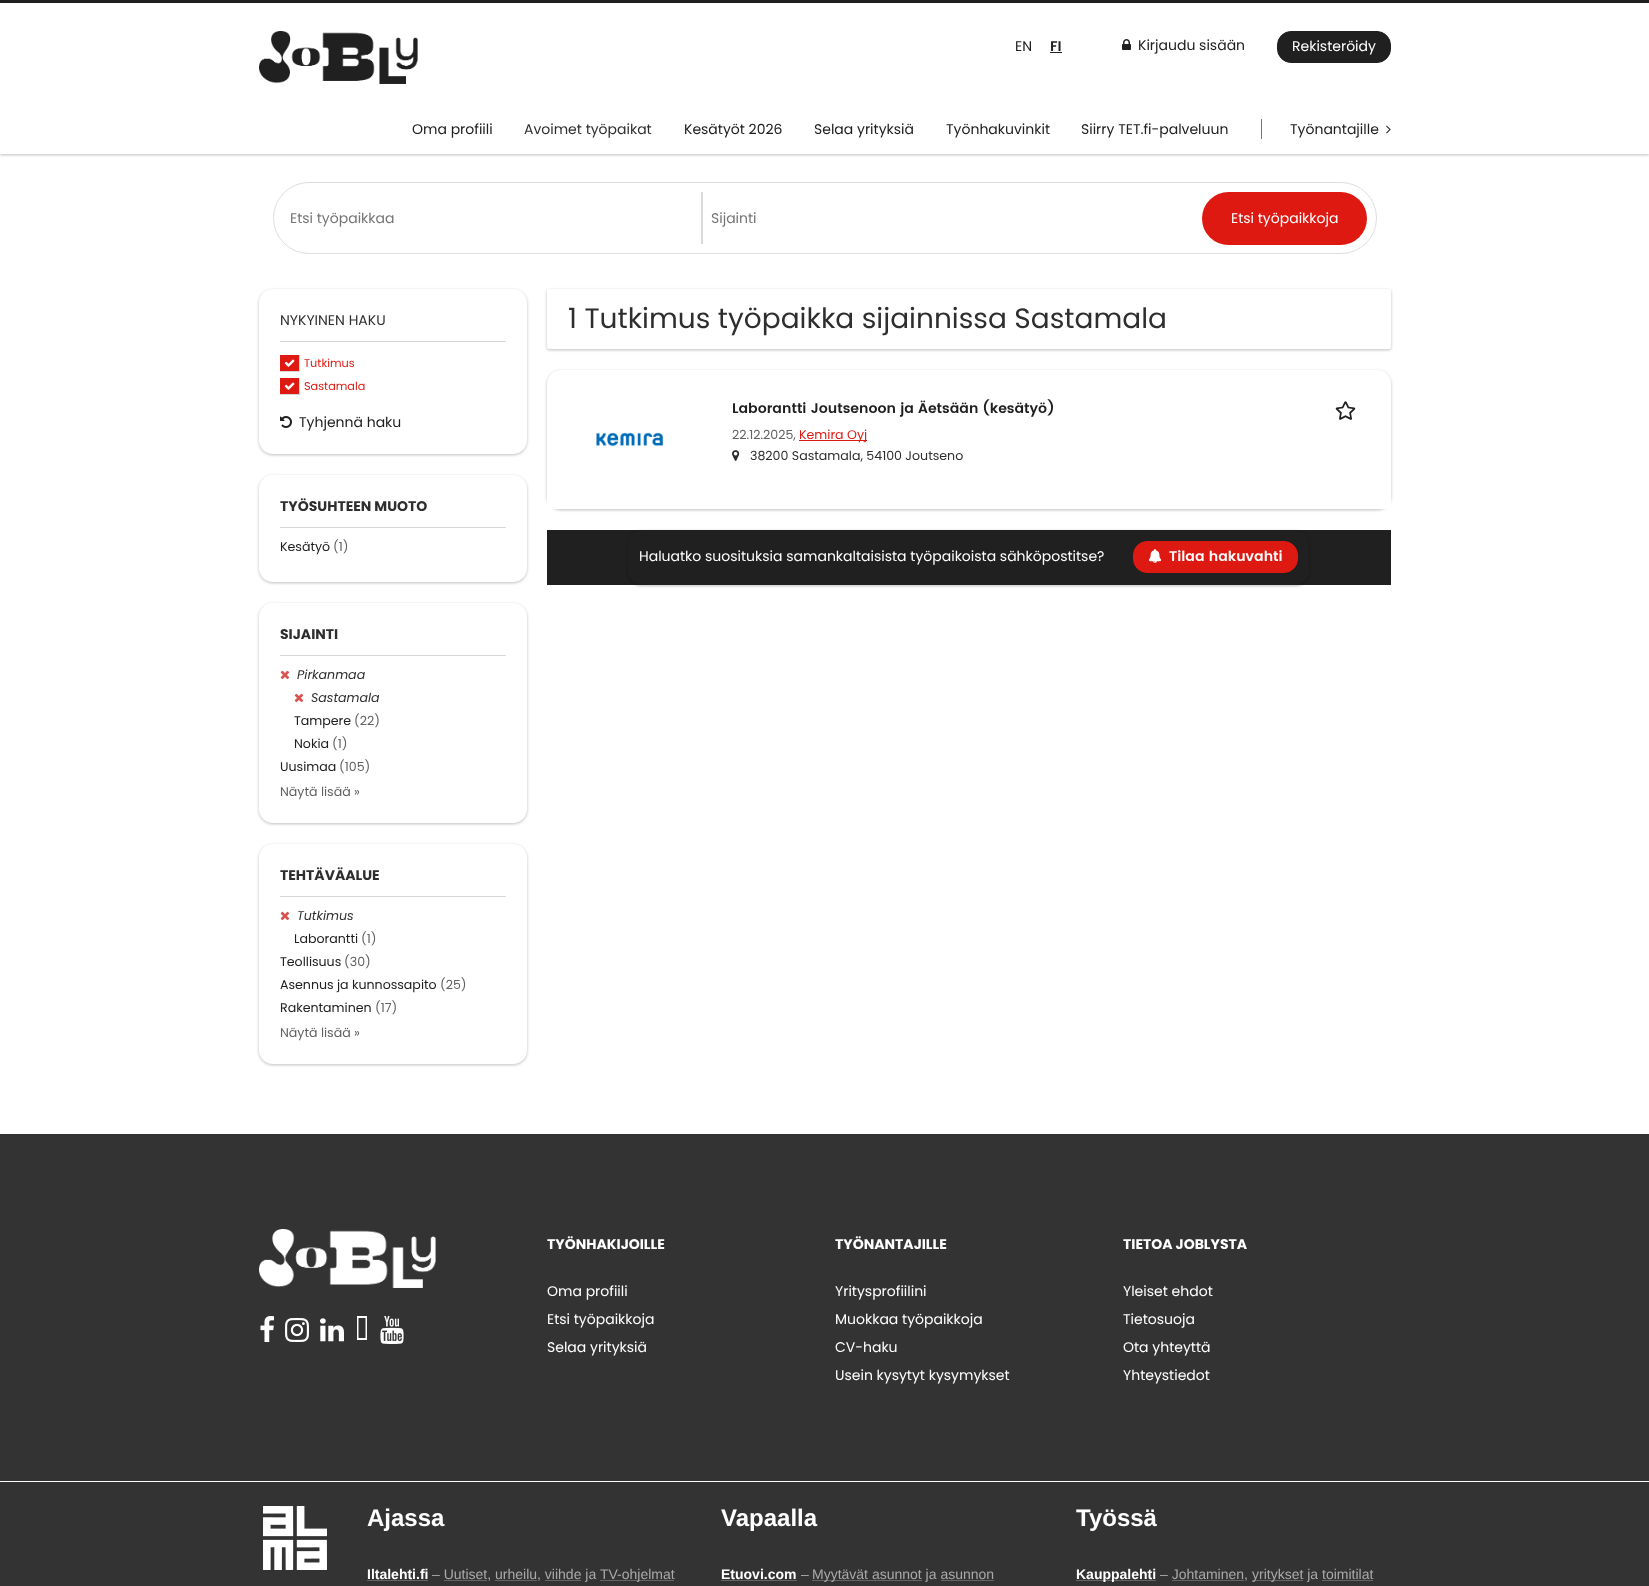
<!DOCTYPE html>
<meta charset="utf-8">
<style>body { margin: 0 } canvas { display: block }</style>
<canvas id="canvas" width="1649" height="1586"></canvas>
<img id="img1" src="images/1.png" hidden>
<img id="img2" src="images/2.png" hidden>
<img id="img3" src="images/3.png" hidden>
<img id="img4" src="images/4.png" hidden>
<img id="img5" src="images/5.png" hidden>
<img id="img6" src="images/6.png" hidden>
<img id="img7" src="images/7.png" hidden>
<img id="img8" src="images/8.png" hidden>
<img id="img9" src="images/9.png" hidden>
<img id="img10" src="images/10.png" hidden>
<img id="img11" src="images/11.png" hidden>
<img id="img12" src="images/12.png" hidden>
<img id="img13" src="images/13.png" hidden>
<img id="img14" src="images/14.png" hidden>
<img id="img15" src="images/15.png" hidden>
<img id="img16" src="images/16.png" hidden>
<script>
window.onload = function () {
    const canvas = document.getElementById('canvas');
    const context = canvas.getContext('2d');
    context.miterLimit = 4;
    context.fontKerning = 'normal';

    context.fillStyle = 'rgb(255, 255, 255)';
    context.fillRect(0, 0, 1649, 1586);
    context.fillStyle = 'rgb(32, 32, 32)';
    context.fillRect(0, 0, 1649, 3);
    context.save();
    context.beginPath();
    context.moveTo(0, 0);
    context.lineTo(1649, 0);
    context.lineTo(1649, 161);
    context.lineTo(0, 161);
    context.closePath();
    context.moveTo(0, 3);
    context.lineTo(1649, 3);
    context.lineTo(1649, 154);
    context.lineTo(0, 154);
    context.closePath();
    context.clip('evenodd');
    context.fillStyle = 'rgba(0, 0, 0, 0.25)';
    context.filter = 'blur(1.5px)';
    context.beginPath();
    context.rect(0, 4, 1649, 151);
    context.fill();
    context.filter = 'none';
    context.restore();
    context.drawImage(document.getElementById('img1'), 259, 31, 159, 53);
    context.fillRect(1050, 52, 12, 1);
    context.drawImage(document.getElementById('img2'), 1122, 39, 9, 11);
    context.beginPath();
    context.roundRect(1277.5, 31.5, 113, 31, 13.5);
    context.fill();
    context.strokeStyle = 'rgb(32, 32, 32)';
    context.stroke();
    context.fillStyle = 'rgb(117, 117, 117)';
    context.fillRect(1261, 119, 1, 20);
    context.drawImage(document.getElementById('img3'), 1386, 125, 5, 9);
    context.beginPath();
    context.roundRect(273.5, 182.5, 1103, 71, 35.5);
    context.strokeStyle = 'rgb(222, 222, 222)';
    context.stroke();
    context.fillStyle = 'rgb(218, 218, 218)';
    context.fillRect(701, 192, 2, 52);
    context.fillStyle = 'rgb(222, 25, 18)';
    context.beginPath();
    context.roundRect(1202, 192, 165, 53, 26.5);
    context.fill();
    context.fillStyle = 'rgba(0, 0, 0, 0.25)';
    context.filter = 'blur(1.5px)';
    context.beginPath();
    context.roundRect(259, 290, 268, 165, 14);
    context.fill();
    context.filter = 'none';
    context.fillStyle = 'rgb(255, 255, 255)';
    context.beginPath();
    context.roundRect(259, 289, 268, 165, 14);
    context.fill();
    context.fillStyle = 'rgb(216, 216, 216)';
    context.fillRect(280, 341, 226, 1);
    context.fillRect(280, 355, 20, 17);
    context.fillStyle = 'rgb(222, 25, 18)';
    context.fillRect(280, 355, 19, 16);
    context.drawImage(document.getElementById('img4'), 284, 359, 11, 8);
    context.fillStyle = 'rgb(216, 216, 216)';
    context.fillRect(280, 378, 20, 17);
    context.fillStyle = 'rgb(222, 25, 18)';
    context.fillRect(280, 378, 19, 16);
    context.drawImage(document.getElementById('img4'), 284, 382, 11, 8);
    context.drawImage(document.getElementById('img5'), 280, 416, 12, 12);
    context.fillStyle = 'rgba(0, 0, 0, 0.25)';
    context.filter = 'blur(1.5px)';
    context.beginPath();
    context.roundRect(259, 476, 268, 107, 14);
    context.fill();
    context.filter = 'none';
    context.fillStyle = 'rgb(255, 255, 255)';
    context.beginPath();
    context.roundRect(259, 475, 268, 107, 14);
    context.fill();
    context.fillStyle = 'rgb(216, 216, 216)';
    context.fillRect(280, 527, 226, 1);
    context.fillStyle = 'rgba(0, 0, 0, 0.25)';
    context.filter = 'blur(1.5px)';
    context.beginPath();
    context.roundRect(259, 604, 268, 220, 14);
    context.fill();
    context.filter = 'none';
    context.fillStyle = 'rgb(255, 255, 255)';
    context.beginPath();
    context.roundRect(259, 603, 268, 220, 14);
    context.fill();
    context.fillStyle = 'rgb(216, 216, 216)';
    context.fillRect(280, 655, 226, 1);
    context.drawImage(document.getElementById('img6'), 280, 670, 10, 10);
    context.drawImage(document.getElementById('img6'), 294, 693, 10, 10);
    context.fillStyle = 'rgba(0, 0, 0, 0.25)';
    context.filter = 'blur(1.5px)';
    context.beginPath();
    context.roundRect(259, 845, 268, 220, 14);
    context.fill();
    context.filter = 'none';
    context.fillStyle = 'rgb(255, 255, 255)';
    context.beginPath();
    context.roundRect(259, 844, 268, 220, 14);
    context.fill();
    context.fillStyle = 'rgb(216, 216, 216)';
    context.fillRect(280, 896, 226, 1);
    context.drawImage(document.getElementById('img6'), 280, 911, 10, 10);
    context.fillStyle = 'rgba(0, 0, 0, 0.25)';
    context.filter = 'blur(1.5px)';
    context.beginPath();
    context.roundRect(547, 290, 844, 60, 2);
    context.fill();
    context.filter = 'none';
    context.fillStyle = 'rgb(255, 255, 255)';
    context.beginPath();
    context.roundRect(547, 289, 844, 60, 2);
    context.fill();
    context.fillStyle = 'rgba(0, 0, 0, 0.25)';
    context.filter = 'blur(1.5px)';
    context.beginPath();
    context.roundRect(547, 371, 844, 139, 14);
    context.fill();
    context.filter = 'none';
    context.fillStyle = 'rgb(255, 255, 255)';
    context.beginPath();
    context.roundRect(547, 370, 844, 139, [14, 14, 2, 2]);
    context.fill();
    context.drawImage(document.getElementById('img7'), 596, 432, 67, 15);
    context.fillStyle = 'rgb(222, 25, 18)';
    context.fillRect(799, 440, 68, 1);
    context.drawImage(document.getElementById('img8'), 732, 450, 8, 11);
    context.drawImage(document.getElementById('img9'), 1335, 401, 21, 19);
    context.fillStyle = 'rgb(32, 32, 32)';
    context.fillRect(547, 530, 844, 55);
    context.save();
    context.beginPath();
    context.moveTo(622, 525);
    context.lineTo(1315, 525);
    context.lineTo(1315, 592);
    context.lineTo(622, 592);
    context.closePath();
    context.moveTo(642, 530);
    context.lineTo(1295, 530);
    context.bezierCurveTo(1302.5, 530, 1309, 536.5, 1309, 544);
    context.lineTo(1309, 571);
    context.bezierCurveTo(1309, 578.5, 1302.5, 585, 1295, 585);
    context.lineTo(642, 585);
    context.bezierCurveTo(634.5, 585, 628, 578.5, 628, 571);
    context.lineTo(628, 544);
    context.bezierCurveTo(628, 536.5, 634.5, 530, 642, 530);
    context.closePath();
    context.clip('evenodd');
    context.fillStyle = 'rgba(0, 0, 0, 0.25)';
    context.filter = 'blur(1.5px)';
    context.beginPath();
    context.roundRect(628, 531, 681, 55, 14);
    context.fill();
    context.filter = 'none';
    context.restore();
    context.fillStyle = 'rgb(222, 25, 18)';
    context.beginPath();
    context.roundRect(1133.5, 541.5, 164, 31, 13.5);
    context.fill();
    context.strokeStyle = 'rgb(222, 25, 18)';
    context.stroke();
    context.drawImage(document.getElementById('img10'), 1148, 549, 14, 14);
    context.fillStyle = 'rgb(51, 51, 51)';
    context.fillRect(0, 1134, 1649, 347);
    context.drawImage(document.getElementById('img11'), 259, 1229, 177, 59);
    context.drawImage(document.getElementById('img12'), 260, 1316, 14, 26);
    context.drawImage(document.getElementById('img13'), 285, 1318, 24, 24);
    context.drawImage(document.getElementById('img14'), 320, 1318, 24, 24);
    context.fillStyle = 'rgb(255, 255, 255)';
    context.beginPath();
    context.moveTo(358.5, 1338);
    context.lineTo(358.5, 1318);
    context.lineTo(365.5, 1318);
    context.lineTo(365.5, 1338);
    context.closePath();
    context.moveTo(357, 1340);
    context.lineTo(367, 1340);
    context.lineTo(367, 1316);
    context.lineTo(357, 1316);
    context.closePath();
    context.fill();
    context.drawImage(document.getElementById('img15'), 380, 1316, 24, 28);
    context.fillStyle = 'rgb(51, 51, 51)';
    context.fillRect(0, 1482, 1649, 104);
    context.drawImage(document.getElementById('img16'), 263, 1506, 64, 64);
    context.fillStyle = 'rgb(100, 100, 100)';
    context.fillRect(367, 1580, 61, 1);
    context.fillRect(600, 1580, 74, 1);
    context.fillRect(721, 1580, 76, 1);
    context.fillRect(812, 1580, 110, 1);
    context.fillRect(1076, 1580, 80, 1);
    context.fillRect(1252, 1580, 51, 1);
    context.font = '14px Poppins';
    context.fillStyle = 'rgb(32, 32, 32)';
    context.fillText('EN', 1015, 51);
    context.font = '600 14px Poppins';
    context.fillText('FI', 1050, 51);
    context.font = '14px Poppins';
    context.fillText('Kirjaudu sisään', 1138, 50);
    context.fillStyle = 'rgb(255, 255, 255)';
    context.fillText('Rekisteröidy', 1292, 51);
    context.fillStyle = 'rgb(32, 32, 32)';
    context.fillText('Oma profiili', 412, 134);
    context.fillStyle = 'rgb(46, 46, 46)';
    context.fillText('Avoimet työpaikat', 524, 134);
    context.fillStyle = 'rgb(32, 32, 32)';
    context.fillText('Kesätyöt 2026', 684, 134);
    context.fillText('Selaa yrityksiä', 814, 134);
    context.fillText('Työnhakuvinkit', 946, 134);
    context.fillText('Siirry TET.fi-palveluun', 1081, 134);
    context.fillText('Työnantajille', 1290, 134);
    context.fillStyle = 'rgb(117, 117, 117)';
    context.fillText('Etsi työpaikkaa', 290, 223);
    context.fillText('Sijainti', 711, 223);
    context.fillStyle = 'rgb(255, 255, 255)';
    context.fillText('Etsi työpaikkoja', 1231, 223);
    context.fillStyle = 'rgb(46, 46, 46)';
    context.fillText('NYKYINEN HAKU', 280, 325);
    context.font = '11.25px Poppins';
    context.fillStyle = 'rgb(222, 25, 18)';
    context.fillText('Tutkimus', 304, 367);
    context.fillText('Sastamala', 304, 390);
    context.font = '14px Poppins';
    context.fillStyle = 'rgb(32, 32, 32)';
    context.fillText('Tyhjennä haku', 299, 427);
    context.font = 'bold 14px Poppins';
    context.fillStyle = 'rgb(46, 46, 46)';
    context.fillText('TYÖSUHTEEN MUOTO', 280, 511);
    context.font = '12.6px Poppins';
    context.fillStyle = 'rgb(32, 32, 32)';
    context.fillText('Kesätyö', 280, 551);
    context.fillStyle = 'rgb(97, 97, 97)';
    context.fillText('(1)', 333, 551);
    context.font = 'bold 14px Poppins';
    context.fillStyle = 'rgb(46, 46, 46)';
    context.fillText('SIJAINTI', 280, 639);
    context.font = 'italic 12.6px Poppins';
    context.fillText('Pirkanmaa', 297, 679);
    context.fillText('Sastamala', 311, 702);
    context.font = '12.6px Poppins';
    context.fillStyle = 'rgb(32, 32, 32)';
    context.fillText('Tampere', 294, 725);
    context.fillStyle = 'rgb(97, 97, 97)';
    context.fillText('(22)', 354, 725);
    context.fillStyle = 'rgb(32, 32, 32)';
    context.fillText('Nokia', 294, 748);
    context.fillStyle = 'rgb(97, 97, 97)';
    context.fillText('(1)', 332, 748);
    context.fillStyle = 'rgb(32, 32, 32)';
    context.fillText('Uusimaa', 280, 771);
    context.fillStyle = 'rgb(97, 97, 97)';
    context.fillText('(105)', 339, 771);
    context.fillText('Näytä lisää »', 280, 796);
    context.font = 'bold 14px Poppins';
    context.fillStyle = 'rgb(46, 46, 46)';
    context.fillText('TEHTÄVÄALUE', 280, 880);
    context.font = 'italic 12.6px Poppins';
    context.fillText('Tutkimus', 297, 920);
    context.font = '12.6px Poppins';
    context.fillStyle = 'rgb(32, 32, 32)';
    context.fillText('Laborantti', 294, 943);
    context.fillStyle = 'rgb(97, 97, 97)';
    context.fillText('(1)', 361, 943);
    context.fillStyle = 'rgb(32, 32, 32)';
    context.fillText('Teollisuus', 280, 966);
    context.fillStyle = 'rgb(97, 97, 97)';
    context.fillText('(30)', 344, 966);
    context.fillStyle = 'rgb(32, 32, 32)';
    context.fillText('Asennus ja kunnossapito', 280, 989);
    context.fillStyle = 'rgb(97, 97, 97)';
    context.fillText('(25)', 440, 989);
    context.fillStyle = 'rgb(32, 32, 32)';
    context.fillText('Rakentaminen', 280, 1012);
    context.fillStyle = 'rgb(97, 97, 97)';
    context.fillText('(17)', 375, 1012);
    context.fillText('Näytä lisää »', 280, 1037);
    context.font = '28px Poppins';
    context.fillStyle = 'rgb(46, 46, 46)';
    context.fillText('1 Tutkimus työpaikka sijainnissa Sastamala', 568, 328);
    context.font = '600 14px Poppins';
    context.fillStyle = 'rgb(32, 32, 32)';
    context.fillText('Laborantti Joutsenoon ja Äetsään (kesätyö)', 732, 413);
    context.font = '12.6px Poppins';
    context.fillStyle = 'rgb(97, 97, 97)';
    context.fillText('22.12.2025,', 732, 439);
    context.fillStyle = 'rgb(222, 25, 18)';
    context.fillText('Kemira Oyj', 799, 439);
    context.fillStyle = 'rgb(46, 46, 46)';
    context.fillText('38200 Sastamala, 54100 Joutseno', 750, 460);
    context.font = '14px Poppins';
    context.fillStyle = 'rgb(255, 255, 255)';
    context.fillText('Haluatko suosituksia samankaltaisista työpaikoista sähköpostitse?', 639, 561);
    context.font = '600 14px Poppins';
    context.fillText('Tilaa hakuvahti', 1169, 561);
    context.font = 'bold 14px Poppins';
    context.fillText('TYÖNHAKIJOILLE', 547, 1249);
    context.font = '14px Poppins';
    context.fillText('Oma profiili', 547, 1296);
    context.fillText('Etsi työpaikkoja', 547, 1324);
    context.fillText('Selaa yrityksiä', 547, 1352);
    context.font = 'bold 14px Poppins';
    context.fillText('TYÖNANTAJILLE', 835, 1249);
    context.font = '14px Poppins';
    context.fillText('Yritysprofiilini', 835, 1296);
    context.fillText('Muokkaa työpaikkoja', 835, 1324);
    context.fillText('CV-haku', 835, 1352);
    context.fillText('Usein kysytyt kysymykset', 835, 1380);
    context.font = 'bold 14px Poppins';
    context.fillText('TIETOA JOBLYSTA', 1123, 1249);
    context.font = '14px Poppins';
    context.fillText('Yleiset ehdot', 1123, 1296);
    context.fillText('Tietosuoja', 1123, 1324);
    context.fillText('Ota yhteyttä', 1123, 1352);
    context.fillText('Yhteystiedot', 1123, 1380);
    context.font = 'bold 24px Liberation Sans';
    context.fillText('Ajassa', 367, 1526);
    context.font = 'bold 14px Liberation Sans';
    context.fillText('Iltalehti.fi', 367, 1579);
    context.font = '14px Liberation Sans';
    context.fillStyle = 'rgb(170, 170, 170)';
    context.fillText('– Uutiset, urheilu, viihde ja', 432, 1579);
    context.fillStyle = 'rgb(100, 100, 100)';
    context.fillRect(444, 1580, 43, 1);
    context.fillRect(495, 1580, 42, 1);
    context.fillRect(545, 1580, 36, 1);
    context.fillStyle = 'rgb(170, 170, 170)';
    context.fillText('TV-ohjelmat', 600, 1579);
    context.font = 'bold 24px Liberation Sans';
    context.fillStyle = 'rgb(255, 255, 255)';
    context.fillText('Vapaalla', 721, 1526);
    context.font = 'bold 14px Liberation Sans';
    context.fillText('Etuovi.com', 721, 1579);
    context.font = '14px Liberation Sans';
    context.fillStyle = 'rgb(170, 170, 170)';
    context.fillText('–', 801, 1579);
    context.fillText('Myytävät asunnot ja asunnon', 812, 1579);
    context.fillStyle = 'rgb(100, 100, 100)';
    context.fillRect(941, 1580, 53, 1);
    context.font = 'bold 24px Liberation Sans';
    context.fillStyle = 'rgb(255, 255, 255)';
    context.fillText('Työssä', 1076, 1526);
    context.font = 'bold 14px Liberation Sans';
    context.fillText('Kauppalehti', 1076, 1579);
    context.font = '14px Liberation Sans';
    context.fillStyle = 'rgb(170, 170, 170)';
    context.fillText('– Johtaminen,', 1160, 1579);
    context.fillStyle = 'rgb(100, 100, 100)';
    context.fillRect(1172, 1580, 72, 1);
    context.fillStyle = 'rgb(170, 170, 170)';
    context.fillText('yritykset ja toimitilat', 1252, 1579);
    context.fillStyle = 'rgb(100, 100, 100)';
    context.fillRect(1322, 1580, 51, 1);
};
</script>
